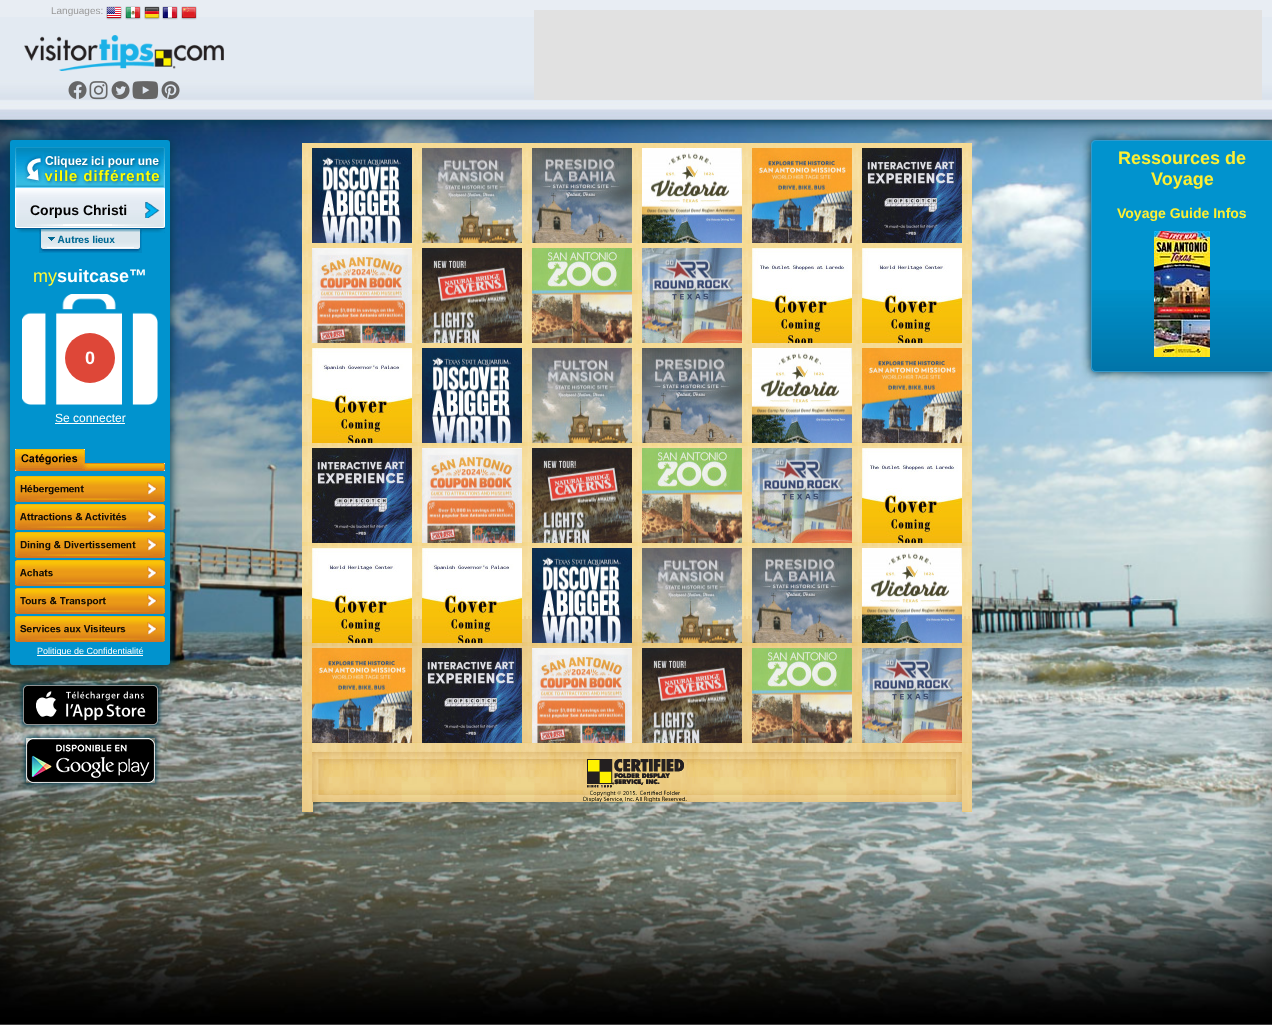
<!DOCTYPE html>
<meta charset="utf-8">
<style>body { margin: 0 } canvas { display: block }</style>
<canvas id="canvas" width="1272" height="1025"></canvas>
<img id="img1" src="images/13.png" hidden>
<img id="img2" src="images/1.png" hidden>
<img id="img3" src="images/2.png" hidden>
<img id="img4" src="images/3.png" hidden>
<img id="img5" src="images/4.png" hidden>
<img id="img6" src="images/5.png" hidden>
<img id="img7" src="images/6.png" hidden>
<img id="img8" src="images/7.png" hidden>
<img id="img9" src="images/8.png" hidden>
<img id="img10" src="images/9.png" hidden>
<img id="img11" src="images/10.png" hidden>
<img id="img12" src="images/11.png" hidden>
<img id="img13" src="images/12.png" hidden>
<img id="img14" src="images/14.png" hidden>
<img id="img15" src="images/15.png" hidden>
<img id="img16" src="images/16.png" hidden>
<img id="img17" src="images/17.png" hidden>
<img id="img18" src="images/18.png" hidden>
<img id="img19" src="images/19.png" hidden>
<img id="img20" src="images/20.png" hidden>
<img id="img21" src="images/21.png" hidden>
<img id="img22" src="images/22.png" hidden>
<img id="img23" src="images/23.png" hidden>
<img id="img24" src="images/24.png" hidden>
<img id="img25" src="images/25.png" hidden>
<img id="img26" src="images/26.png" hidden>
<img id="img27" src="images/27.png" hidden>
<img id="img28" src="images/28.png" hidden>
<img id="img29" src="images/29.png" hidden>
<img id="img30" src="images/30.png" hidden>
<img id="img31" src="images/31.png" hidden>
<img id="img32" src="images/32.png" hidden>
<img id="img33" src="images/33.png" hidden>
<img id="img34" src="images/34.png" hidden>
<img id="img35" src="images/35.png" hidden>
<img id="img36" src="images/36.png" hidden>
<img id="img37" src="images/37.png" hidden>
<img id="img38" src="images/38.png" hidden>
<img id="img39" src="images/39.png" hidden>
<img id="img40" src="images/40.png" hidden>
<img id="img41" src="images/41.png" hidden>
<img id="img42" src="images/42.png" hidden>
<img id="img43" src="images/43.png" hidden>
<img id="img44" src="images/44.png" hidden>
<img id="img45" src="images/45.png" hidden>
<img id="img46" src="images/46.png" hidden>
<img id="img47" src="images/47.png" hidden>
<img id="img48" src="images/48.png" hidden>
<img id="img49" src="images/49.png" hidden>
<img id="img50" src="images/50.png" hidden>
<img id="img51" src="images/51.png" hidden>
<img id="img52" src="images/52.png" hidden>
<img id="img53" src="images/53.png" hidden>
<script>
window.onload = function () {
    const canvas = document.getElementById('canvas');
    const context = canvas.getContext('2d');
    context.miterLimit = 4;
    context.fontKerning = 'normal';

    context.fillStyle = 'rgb(255, 255, 255)';
    context.fillRect(0, 0, 1272, 1025);
    context.drawImage(document.getElementById('img1'), 0, 120, 1272, 905);
    context.fillStyle = 'rgb(0, 60, 80)';
    context.filter = 'blur(5px)';
    context.beginPath();
    context.rect(-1, -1, 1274, 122);
    context.fill();
    context.filter = 'none';
    context.fillStyle = 'rgb(232, 237, 243)';
    context.fillRect(0, 0, 1272, 17);
    context.drawImage(document.getElementById('img2'), 0, 17, 1272, 103);
    context.drawImage(document.getElementById('img3'), 106, 6, 16, 14);
    context.drawImage(document.getElementById('img4'), 125, 6, 16, 14);
    context.drawImage(document.getElementById('img5'), 144, 6, 16, 14);
    context.drawImage(document.getElementById('img6'), 162, 6, 16, 14);
    context.drawImage(document.getElementById('img7'), 181, 6, 16, 14);
    context.fillStyle = 'rgb(225, 225, 225)';
    context.fillRect(534, 10, 728, 90);
    context.drawImage(document.getElementById('img8'), 24, 35, 200, 36);
    context.drawImage(document.getElementById('img9'), 68, 81, 19, 18);
    context.drawImage(document.getElementById('img10'), 89, 81, 19, 19);
    context.drawImage(document.getElementById('img11'), 111, 81, 19, 19);
    context.drawImage(document.getElementById('img12'), 132, 81, 27, 19);
    context.drawImage(document.getElementById('img13'), 161, 81, 19, 19);
    context.drawImage(document.getElementById('img14'), 302, 143, 670, 600);
    context.drawImage(document.getElementById('img15'), 312, 148, 100, 95);
    context.drawImage(document.getElementById('img16'), 422, 148, 100, 95);
    context.drawImage(document.getElementById('img17'), 532, 148, 100, 95);
    context.drawImage(document.getElementById('img18'), 642, 148, 100, 95);
    context.drawImage(document.getElementById('img19'), 752, 148, 100, 95);
    context.drawImage(document.getElementById('img20'), 862, 148, 100, 95);
    context.drawImage(document.getElementById('img21'), 312, 248, 100, 95);
    context.drawImage(document.getElementById('img22'), 422, 248, 100, 95);
    context.drawImage(document.getElementById('img23'), 532, 248, 100, 95);
    context.drawImage(document.getElementById('img24'), 642, 248, 100, 95);
    context.drawImage(document.getElementById('img25'), 752, 248, 100, 95);
    context.drawImage(document.getElementById('img26'), 862, 248, 100, 95);
    context.drawImage(document.getElementById('img27'), 312, 348, 100, 95);
    context.drawImage(document.getElementById('img15'), 422, 348, 100, 95);
    context.drawImage(document.getElementById('img16'), 532, 348, 100, 95);
    context.drawImage(document.getElementById('img17'), 642, 348, 100, 95);
    context.drawImage(document.getElementById('img18'), 752, 348, 100, 95);
    context.drawImage(document.getElementById('img19'), 862, 348, 100, 95);
    context.drawImage(document.getElementById('img20'), 312, 448, 100, 95);
    context.drawImage(document.getElementById('img21'), 422, 448, 100, 95);
    context.drawImage(document.getElementById('img22'), 532, 448, 100, 95);
    context.drawImage(document.getElementById('img23'), 642, 448, 100, 95);
    context.drawImage(document.getElementById('img28'), 752, 448, 100, 95);
    context.drawImage(document.getElementById('img25'), 862, 448, 100, 95);
    context.drawImage(document.getElementById('img26'), 312, 548, 100, 95);
    context.drawImage(document.getElementById('img27'), 422, 548, 100, 95);
    context.drawImage(document.getElementById('img15'), 532, 548, 100, 95);
    context.drawImage(document.getElementById('img16'), 642, 548, 100, 95);
    context.drawImage(document.getElementById('img17'), 752, 548, 100, 95);
    context.drawImage(document.getElementById('img18'), 862, 548, 100, 95);
    context.drawImage(document.getElementById('img19'), 312, 648, 100, 95);
    context.drawImage(document.getElementById('img20'), 422, 648, 100, 95);
    context.drawImage(document.getElementById('img21'), 532, 648, 100, 95);
    context.drawImage(document.getElementById('img22'), 642, 648, 100, 95);
    context.drawImage(document.getElementById('img23'), 752, 648, 100, 95);
    context.drawImage(document.getElementById('img29'), 862, 648, 100, 95);
    context.drawImage(document.getElementById('img30'), 302, 743, 11, 69);
    context.drawImage(document.getElementById('img31'), 962, 743, 10, 69);
    context.drawImage(document.getElementById('img32'), 312, 743, 650, 59);
    context.drawImage(document.getElementById('img33'), 312, 752, 17, 50);
    context.drawImage(document.getElementById('img34'), 946, 752, 16, 50);
    context.drawImage(document.getElementById('img35'), 583, 759, 104, 43);
    context.fillStyle = 'rgb(0, 60, 80)';
    context.filter = 'blur(5px)';
    context.beginPath();
    context.roundRect(1090, 139, 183, 234, 6);
    context.fill();
    context.filter = 'none';
    context.fillStyle = 'rgb(1, 147, 206)';
    context.beginPath();
    context.roundRect(1091, 140, 181, 232, [5, 0, 0, 5]);
    context.fill();
    context.drawImage(document.getElementById('img36'), 1091, 290, 181, 81);
    context.fillStyle = 'rgb(51, 153, 204)';
    context.beginPath();
    context.moveTo(1096, 140);
    context.lineTo(1272, 140);
    context.lineTo(1272, 372);
    context.lineTo(1096, 372);
    context.bezierCurveTo(1093, 372, 1091, 370, 1091, 367);
    context.lineTo(1091, 145);
    context.bezierCurveTo(1091, 142, 1093, 140, 1096, 140);
    context.closePath();
    context.moveTo(1096, 141);
    context.lineTo(1272, 141);
    context.lineTo(1272, 371);
    context.lineTo(1096, 371);
    context.bezierCurveTo(1094, 371, 1092, 369, 1092, 367);
    context.lineTo(1092, 145);
    context.bezierCurveTo(1092, 143, 1094, 141, 1096, 141);
    context.closePath();
    context.fill('evenodd');
    context.drawImage(document.getElementById('img37'), 1154, 231, 56, 126);
    context.fillStyle = 'rgb(0, 60, 80)';
    context.filter = 'blur(5px)';
    context.beginPath();
    context.roundRect(9, 139, 162, 527, 4);
    context.fill();
    context.filter = 'none';
    context.fillStyle = 'rgb(1, 147, 206)';
    context.beginPath();
    context.roundRect(11, 141, 158, 523, 2);
    context.fill();
    context.strokeStyle = 'rgb(1, 147, 206)';
    context.lineWidth = 2;
    context.stroke();
    context.drawImage(document.getElementById('img38'), 15, 223, 150, 5);
    context.drawImage(document.getElementById('img39'), 15, 147, 150, 76);
    context.drawImage(document.getElementById('img40'), 145, 202, 15, 16);
    context.drawImage(document.getElementById('img41'), 17, 229, 148, 4);
    context.fillStyle = 'rgb(0, 94, 151)';
    context.fillRect(15, 228, 150, 1);
    context.drawImage(document.getElementById('img42'), 39, 229, 103, 24);
    context.drawImage(document.getElementById('img43'), 22, 294, 136, 111);
    context.fillStyle = 'rgb(222, 71, 56)';
    context.beginPath();
    context.arc(90, 358, 25, 0, 2 * Math.PI);
    context.fill();
    context.fillStyle = 'rgb(255, 255, 255)';
    context.fillRect(55, 423, 70, 1);
    context.drawImage(document.getElementById('img44'), 15, 449, 150, 22);
    context.drawImage(document.getElementById('img45'), 15, 476, 150, 26);
    context.drawImage(document.getElementById('img46'), 20, 485, 64, 10);
    context.drawImage(document.getElementById('img45'), 15, 504, 150, 26);
    context.drawImage(document.getElementById('img47'), 20, 513, 107, 8);
    context.drawImage(document.getElementById('img45'), 15, 532, 150, 26);
    context.drawImage(document.getElementById('img48'), 20, 541, 116, 10);
    context.drawImage(document.getElementById('img45'), 15, 560, 150, 26);
    context.drawImage(document.getElementById('img49'), 20, 569, 33, 8);
    context.drawImage(document.getElementById('img45'), 15, 588, 150, 26);
    context.drawImage(document.getElementById('img50'), 20, 597, 86, 10);
    context.drawImage(document.getElementById('img45'), 15, 616, 150, 26);
    context.drawImage(document.getElementById('img51'), 20, 625, 106, 8);
    context.fillRect(37, 655, 106, 1);
    context.fillStyle = 'rgb(0, 60, 80)';
    context.filter = 'blur(2.5px)';
    context.beginPath();
    context.rect(22, 684, 137, 42);
    context.fill();
    context.filter = 'none';
    context.drawImage(document.getElementById('img52'), 23, 685, 135, 40);
    context.save();
    context.beginPath();
    context.moveTo(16, 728);
    context.lineTo(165, 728);
    context.lineTo(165, 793);
    context.lineTo(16, 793);
    context.closePath();
    context.moveTo(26, 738);
    context.lineTo(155, 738);
    context.lineTo(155, 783);
    context.lineTo(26, 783);
    context.closePath();
    context.clip('evenodd');
    context.filter = 'blur(2.5px)';
    context.beginPath();
    context.rect(25, 737, 131, 47);
    context.fill();
    context.filter = 'none';
    context.restore();
    context.drawImage(document.getElementById('img53'), 26, 738, 129, 45);
    context.font = '10px Liberation Sans';
    context.fillStyle = 'rgb(153, 153, 153)';
    context.fillText('Languages:', 51, 14);
    context.font = 'bold 18px Liberation Sans';
    context.fillStyle = 'rgb(254, 239, 50)';
    context.fillText('Ressources de', 1118, 164);
    context.fillText('Voyage', 1151, 185);
    context.font = 'bold 14px Liberation Sans';
    context.fillText('Voyage Guide Infos', 1117, 218);
    context.fillStyle = 'rgb(0, 0, 0)';
    context.fillText('Corpus Christi', 30, 215);
    context.font = '18px Liberation Sans';
    context.fillStyle = 'rgb(255, 248, 53)';
    context.fillText('my', 33, 282);
    context.font = 'bold 18px Liberation Sans';
    context.fillStyle = 'rgb(255, 255, 255)';
    context.fillText('suitcase™', 57, 282);
    context.fillText('0', 85, 364);
    context.font = '12px Liberation Sans';
    context.fillText('Se connecter', 55, 422);
    context.font = '9px Liberation Sans';
    context.fillText('Politique de Confidentialité', 37, 654);
};
</script>
